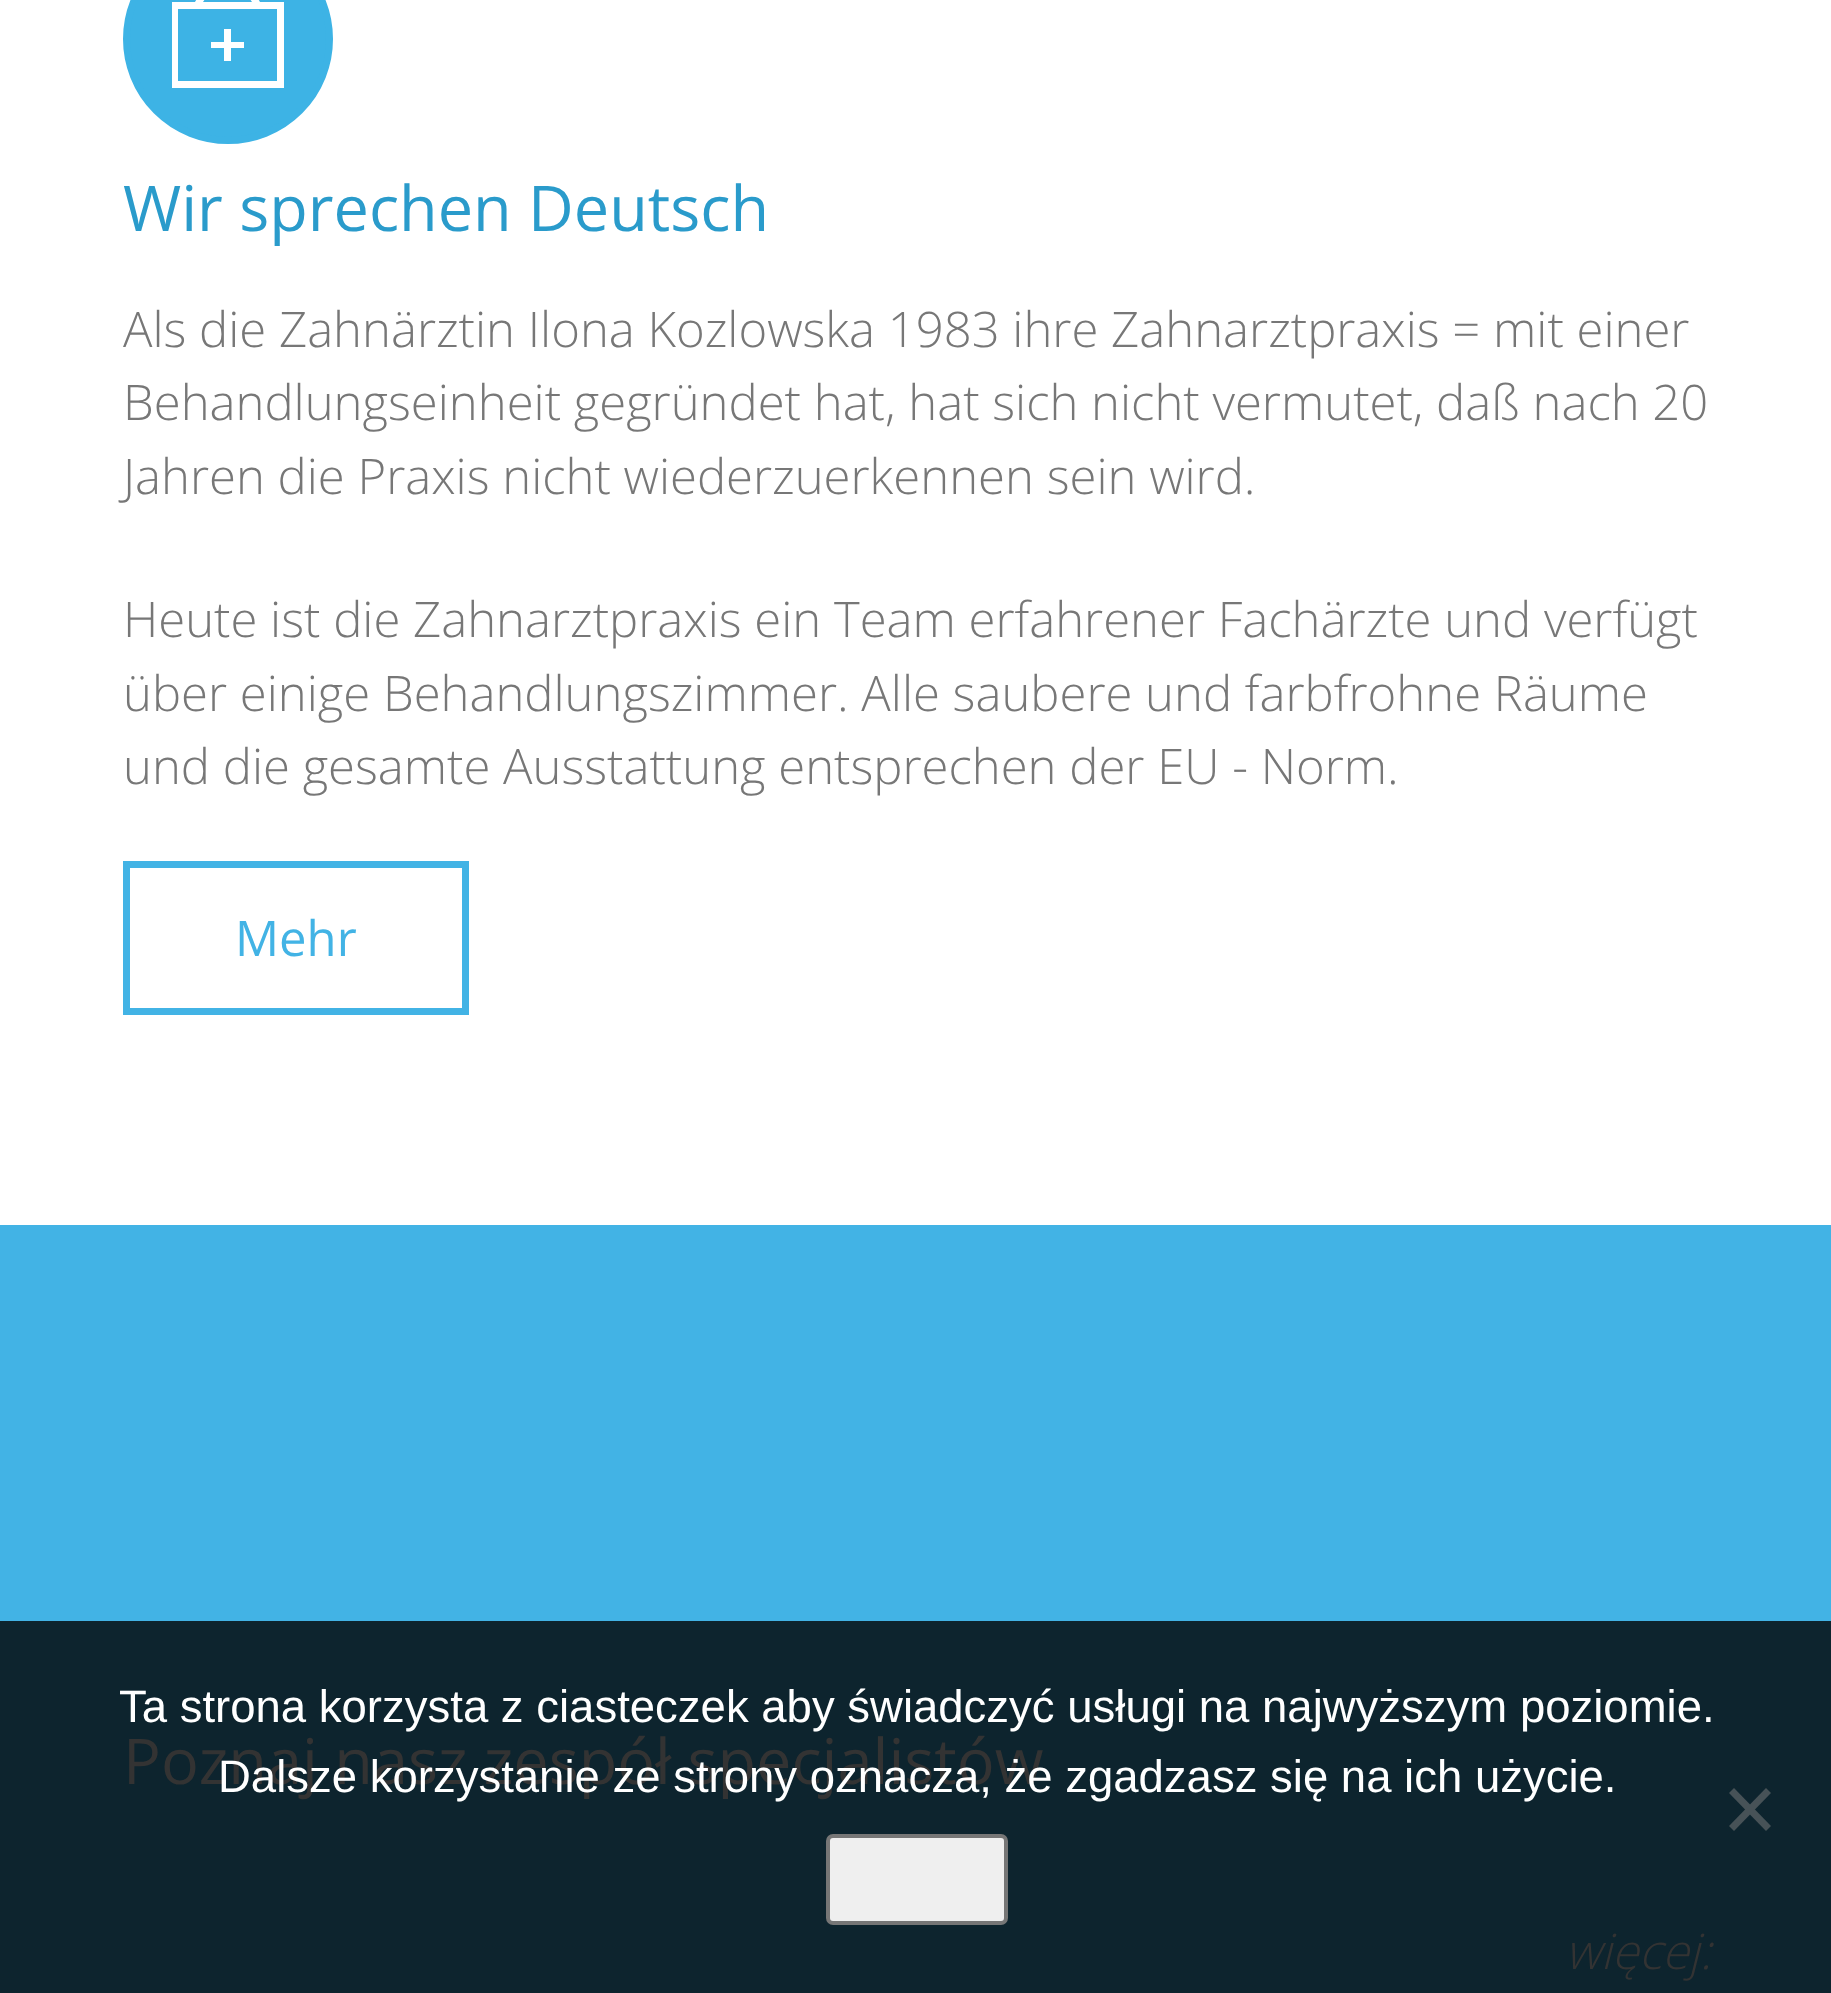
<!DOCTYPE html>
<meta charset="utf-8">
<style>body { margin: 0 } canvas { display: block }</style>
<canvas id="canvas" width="1831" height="1993"></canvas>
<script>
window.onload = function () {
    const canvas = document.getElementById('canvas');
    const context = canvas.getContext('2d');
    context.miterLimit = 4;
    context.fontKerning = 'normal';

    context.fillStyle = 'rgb(255, 255, 255)';
    context.fillRect(0, 0, 1831, 1993);
    context.fillStyle = 'rgb(61, 179, 229)';
    context.beginPath();
    context.arc(228, 39, 101.5, 0, 2 * Math.PI);
    context.fill();
    context.strokeStyle = 'rgb(61, 179, 229)';
    context.lineWidth = 7;
    context.stroke();
    context.fillStyle = 'rgb(255, 255, 255)';
    context.beginPath();
    context.moveTo(260, 2);
    context.bezierCurveTo(246, -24, 209, -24, 195, 2);
    context.lineTo(172, 2);
    context.lineTo(172, 88);
    context.lineTo(284, 88);
    context.lineTo(284, 2);
    context.closePath();
    context.moveTo(228, -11);
    context.bezierCurveTo(238, -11, 247, -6, 252, 2);
    context.lineTo(203, 2);
    context.bezierCurveTo(208, -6, 217, -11, 228, -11);
    context.closePath();
    context.moveTo(277, 81);
    context.lineTo(178, 81);
    context.lineTo(178, 9);
    context.lineTo(277, 9);
    context.closePath();
    context.moveTo(224, 48);
    context.lineTo(211, 48);
    context.lineTo(211, 42);
    context.lineTo(224, 42);
    context.lineTo(224, 29);
    context.lineTo(231, 29);
    context.lineTo(231, 42);
    context.lineTo(244, 42);
    context.lineTo(244, 48);
    context.lineTo(231, 48);
    context.lineTo(231, 61);
    context.lineTo(224, 61);
    context.closePath();
    context.fill();
    context.strokeStyle = 'rgb(66, 179, 229)';
    context.strokeRect(126.5, 864.5, 339, 147);
    context.fillStyle = 'rgb(66, 179, 229)';
    context.fillRect(0, 1225, 1831, 396);
    context.fillStyle = 'rgb(13, 36, 46)';
    context.fillRect(0, 1621, 1831, 372);
    context.fillStyle = 'rgb(71, 82, 87)';
    context.beginPath();
    context.moveTo(1766, 1788);
    context.lineTo(1771, 1793);
    context.lineTo(1734, 1831);
    context.lineTo(1729, 1826);
    context.closePath();
    context.fill();
    context.beginPath();
    context.moveTo(1729, 1793);
    context.lineTo(1734, 1788);
    context.lineTo(1771, 1826);
    context.lineTo(1766, 1831);
    context.closePath();
    context.fill();
    context.fillStyle = 'rgb(239, 239, 239)';
    context.beginPath();
    context.roundRect(828, 1836, 178, 87, 5);
    context.fill();
    context.strokeStyle = 'rgb(118, 118, 118)';
    context.lineWidth = 4;
    context.stroke();
    context.font = '63px Open Sans';
    context.fillStyle = 'rgb(42, 155, 203)';
    context.fillText('Wir sprechen Deutsch', 123, 231);
    context.font = '300 49px Open Sans';
    context.fillStyle = 'rgb(119, 119, 119)';
    context.fillText('Als die Zahnärztin Ilona Kozlowska 1983 ihre Zahnarztpraxis = mit einer', 123, 347);
    context.fillText('Behandlungseinheit gegründet hat, hat sich nicht vermutet, daß nach 20', 123, 420);
    context.fillText('Jahren die Praxis nicht wiederzuerkennen sein wird.', 123, 494);
    context.fillText('Heute ist die Zahnarztpraxis ein Team erfahrener Fachärzte und verfügt', 123, 637);
    context.fillText('über einige Behandlungszimmer. Alle saubere und farbfrohne Räume', 123, 711);
    context.fillText('und die gesamte Ausstattung entsprechen der EU - Norm.', 123, 784);
    context.font = '49px Open Sans';
    context.fillStyle = 'rgb(66, 179, 229)';
    context.fillText('Mehr', 235, 956);
    context.font = '63px Open Sans';
    context.fillStyle = 'rgb(51, 51, 51)';
    context.fillText('Poznaj nasz zespół specjalistów', 123, 1784);
    context.font = 'italic 300 49px Open Sans';
    context.fillText('więcej:', 1565, 1969);
    context.font = '45.5px Liberation Sans';
    context.fillStyle = 'rgb(255, 255, 255)';
    context.fillText('Ta strona korzysta z ciasteczek aby świadczyć usługi na najwyższym poziomie.', 119, 1722);
    context.fillText('Dalsze korzystanie ze strony oznacza, że zgadzasz się na ich użycie.', 218, 1792);
};
</script>
